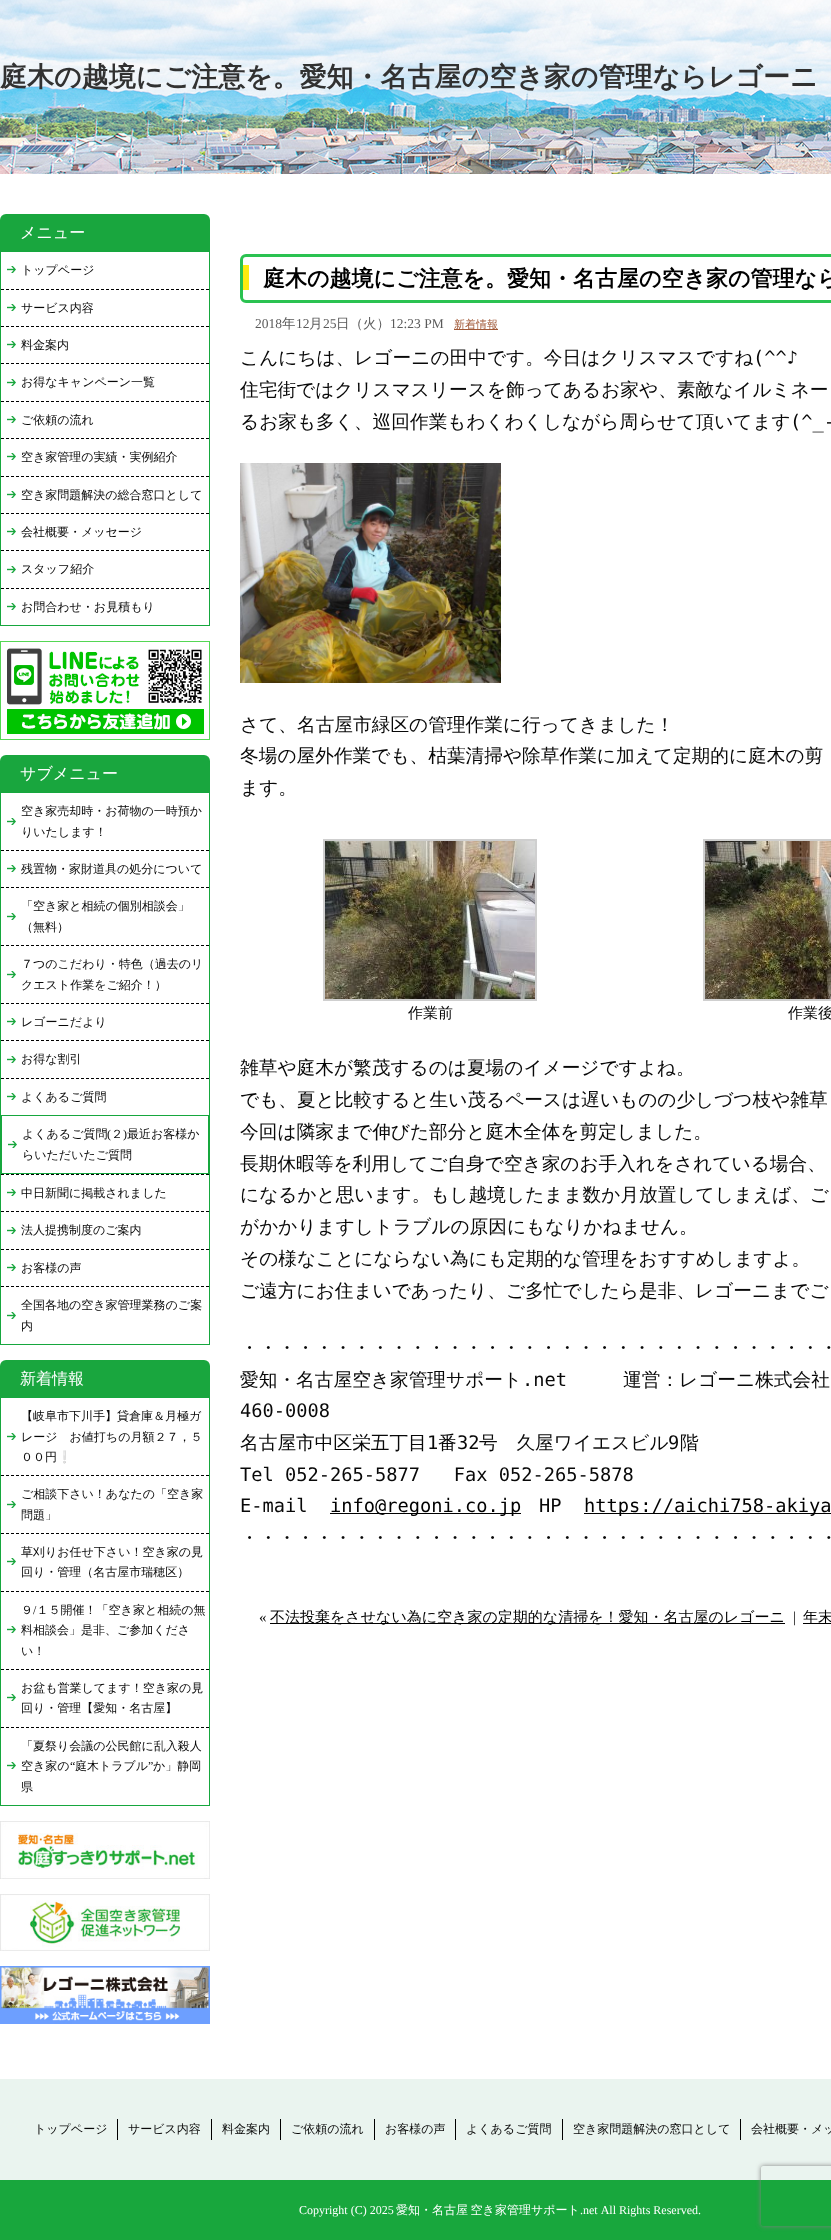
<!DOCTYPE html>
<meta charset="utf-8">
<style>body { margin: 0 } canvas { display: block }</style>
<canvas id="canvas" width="831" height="2240"></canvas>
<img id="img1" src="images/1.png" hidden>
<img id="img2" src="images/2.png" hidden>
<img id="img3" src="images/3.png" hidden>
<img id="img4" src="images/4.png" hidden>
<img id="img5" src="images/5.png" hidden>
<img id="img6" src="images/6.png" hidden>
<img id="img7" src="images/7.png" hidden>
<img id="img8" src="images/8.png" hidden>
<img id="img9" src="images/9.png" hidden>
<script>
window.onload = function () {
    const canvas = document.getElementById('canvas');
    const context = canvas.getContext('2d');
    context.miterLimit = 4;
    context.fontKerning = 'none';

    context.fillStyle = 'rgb(255, 255, 255)';
    context.fillRect(0, 0, 831, 2240);
    context.drawImage(document.getElementById('img1'), 0, 0, 831, 174);
    context.fillStyle = 'rgb(25, 166, 62)';
    context.beginPath();
    context.roundRect(0, 214, 210, 37, [6, 6, 0, 0]);
    context.fill();
    context.strokeStyle = 'rgb(22, 167, 62)';
    context.strokeRect(0.5, 251.5, 209, 374);
    context.beginPath();
    context.moveTo(1, 289.5);
    context.lineTo(209, 289.5);
    context.strokeStyle = 'rgb(0, 0, 0)';
    context.setLineDash([3, 2]);
    context.stroke();
    context.drawImage(document.getElementById('img2'), 7, 266, 9, 7);
    context.beginPath();
    context.moveTo(1, 326.5);
    context.lineTo(209, 326.5);
    context.stroke();
    context.drawImage(document.getElementById('img2'), 7, 304, 9, 7);
    context.beginPath();
    context.moveTo(1, 363.5);
    context.lineTo(209, 363.5);
    context.stroke();
    context.drawImage(document.getElementById('img2'), 7, 341, 9, 7);
    context.beginPath();
    context.moveTo(1, 401.5);
    context.lineTo(209, 401.5);
    context.stroke();
    context.drawImage(document.getElementById('img2'), 7, 379, 9, 7);
    context.beginPath();
    context.moveTo(1, 438.5);
    context.lineTo(209, 438.5);
    context.stroke();
    context.drawImage(document.getElementById('img2'), 7, 416, 9, 7);
    context.beginPath();
    context.moveTo(1, 476.5);
    context.lineTo(209, 476.5);
    context.stroke();
    context.drawImage(document.getElementById('img2'), 7, 453, 9, 7);
    context.beginPath();
    context.moveTo(1, 513.5);
    context.lineTo(209, 513.5);
    context.stroke();
    context.drawImage(document.getElementById('img2'), 7, 491, 9, 7);
    context.beginPath();
    context.moveTo(1, 550.5);
    context.lineTo(209, 550.5);
    context.stroke();
    context.drawImage(document.getElementById('img2'), 7, 528, 9, 7);
    context.beginPath();
    context.moveTo(1, 588.5);
    context.lineTo(209, 588.5);
    context.stroke();
    context.drawImage(document.getElementById('img2'), 7, 566, 9, 7);
    context.drawImage(document.getElementById('img2'), 7, 603, 9, 7);
    context.drawImage(document.getElementById('img3'), 0, 641, 210, 99);
    context.beginPath();
    context.roundRect(0, 755, 210, 37, [6, 6, 0, 0]);
    context.fill();
    context.strokeStyle = 'rgb(22, 167, 62)';
    context.setLineDash([]);
    context.strokeRect(0.5, 792.5, 209, 552);
    context.beginPath();
    context.moveTo(1, 850.5);
    context.lineTo(209, 850.5);
    context.strokeStyle = 'rgb(0, 0, 0)';
    context.setLineDash([3, 2]);
    context.stroke();
    context.drawImage(document.getElementById('img2'), 7, 818, 9, 7);
    context.beginPath();
    context.moveTo(1, 887.5);
    context.lineTo(209, 887.5);
    context.stroke();
    context.drawImage(document.getElementById('img2'), 7, 865, 9, 7);
    context.beginPath();
    context.moveTo(1, 945.5);
    context.lineTo(209, 945.5);
    context.stroke();
    context.drawImage(document.getElementById('img2'), 7, 913, 9, 7);
    context.beginPath();
    context.moveTo(1, 1003.5);
    context.lineTo(209, 1003.5);
    context.stroke();
    context.drawImage(document.getElementById('img2'), 7, 971, 9, 7);
    context.beginPath();
    context.moveTo(1, 1040.5);
    context.lineTo(209, 1040.5);
    context.stroke();
    context.drawImage(document.getElementById('img2'), 7, 1018, 9, 7);
    context.beginPath();
    context.moveTo(1, 1078.5);
    context.lineTo(209, 1078.5);
    context.stroke();
    context.drawImage(document.getElementById('img2'), 7, 1056, 9, 7);
    context.beginPath();
    context.moveTo(1, 1174.5);
    context.lineTo(209, 1174.5);
    context.stroke();
    context.drawImage(document.getElementById('img2'), 7, 1093, 9, 7);
    context.strokeStyle = 'rgb(22, 167, 62)';
    context.setLineDash([]);
    context.strokeRect(1.5, 1115.5, 207, 58);
    context.drawImage(document.getElementById('img2'), 8, 1141, 9, 7);
    context.beginPath();
    context.moveTo(1, 1211.5);
    context.lineTo(209, 1211.5);
    context.strokeStyle = 'rgb(0, 0, 0)';
    context.setLineDash([3, 2]);
    context.stroke();
    context.drawImage(document.getElementById('img2'), 7, 1189, 9, 7);
    context.beginPath();
    context.moveTo(1, 1249.5);
    context.lineTo(209, 1249.5);
    context.stroke();
    context.drawImage(document.getElementById('img2'), 7, 1227, 9, 7);
    context.beginPath();
    context.moveTo(1, 1286.5);
    context.lineTo(209, 1286.5);
    context.stroke();
    context.drawImage(document.getElementById('img2'), 7, 1264, 9, 7);
    context.drawImage(document.getElementById('img2'), 7, 1312, 9, 7);
    context.beginPath();
    context.roundRect(0, 1360, 210, 37, [6, 6, 0, 0]);
    context.fill();
    context.strokeStyle = 'rgb(22, 167, 62)';
    context.setLineDash([]);
    context.strokeRect(0.5, 1397.5, 209, 408);
    context.beginPath();
    context.moveTo(1, 1475.5);
    context.lineTo(209, 1475.5);
    context.strokeStyle = 'rgb(0, 0, 0)';
    context.setLineDash([3, 2]);
    context.stroke();
    context.drawImage(document.getElementById('img2'), 7, 1433, 9, 7);
    context.beginPath();
    context.moveTo(1, 1533.5);
    context.lineTo(209, 1533.5);
    context.stroke();
    context.drawImage(document.getElementById('img2'), 7, 1501, 9, 7);
    context.beginPath();
    context.moveTo(1, 1591.5);
    context.lineTo(209, 1591.5);
    context.stroke();
    context.drawImage(document.getElementById('img2'), 7, 1558, 9, 7);
    context.beginPath();
    context.moveTo(1, 1669.5);
    context.lineTo(209, 1669.5);
    context.stroke();
    context.drawImage(document.getElementById('img2'), 7, 1626, 9, 7);
    context.beginPath();
    context.moveTo(1, 1727.5);
    context.lineTo(209, 1727.5);
    context.stroke();
    context.drawImage(document.getElementById('img2'), 7, 1694, 9, 7);
    context.drawImage(document.getElementById('img2'), 7, 1762, 9, 7);
    context.drawImage(document.getElementById('img4'), 0, 1821, 210, 58);
    context.drawImage(document.getElementById('img5'), 0, 1894, 210, 57);
    context.drawImage(document.getElementById('img6'), 0, 1966, 210, 58);
    context.beginPath();
    context.roundRect(241.5, 255.5, 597, 46, 4.5);
    context.strokeStyle = 'rgb(42, 194, 81)';
    context.lineWidth = 3;
    context.setLineDash([]);
    context.stroke();
    context.fillStyle = 'rgb(255, 235, 16)';
    context.fillRect(243, 265, 6, 25);
    context.fillStyle = 'rgb(160, 87, 53)';
    context.fillRect(454, 329, 44, 1);
    context.drawImage(document.getElementById('img7'), 240, 463, 261, 220);
    context.strokeStyle = 'rgb(207, 207, 207)';
    context.lineWidth = 2;
    context.strokeRect(324, 840, 212, 160);
    context.drawImage(document.getElementById('img8'), 325, 841, 210, 158);
    context.strokeRect(704, 840, 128, 160);
    context.drawImage(document.getElementById('img9'), 705, 841, 126, 158);
    context.fillStyle = 'rgb(0, 0, 0)';
    context.fillRect(330, 1513, 191, 1);
    context.fillRect(584, 1513, 247, 1);
    context.fillRect(270, 1623, 515, 1);
    context.fillRect(803, 1623, 28, 1);
    context.fillStyle = 'rgb(234, 244, 239)';
    context.fillRect(0, 2079, 831, 101);
    context.fillStyle = 'rgb(0, 0, 0)';
    context.fillRect(117, 2119, 1, 21);
    context.fillRect(211, 2119, 1, 21);
    context.fillRect(280, 2119, 1, 21);
    context.fillRect(374, 2119, 1, 21);
    context.fillRect(455, 2119, 1, 21);
    context.fillRect(562, 2119, 1, 21);
    context.fillRect(740, 2119, 1, 21);
    context.fillStyle = 'rgb(24, 167, 61)';
    context.fillRect(0, 2180, 831, 60);
    context.save();
    context.beginPath();
    context.moveTo(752, 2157);
    context.lineTo(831, 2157);
    context.lineTo(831, 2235);
    context.lineTo(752, 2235);
    context.closePath();
    context.moveTo(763, 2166);
    context.lineTo(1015, 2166);
    context.bezierCurveTo(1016, 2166, 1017, 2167, 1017, 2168);
    context.lineTo(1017, 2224);
    context.bezierCurveTo(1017, 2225, 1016, 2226, 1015, 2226);
    context.lineTo(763, 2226);
    context.bezierCurveTo(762, 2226, 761, 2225, 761, 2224);
    context.lineTo(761, 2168);
    context.bezierCurveTo(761, 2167, 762, 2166, 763, 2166);
    context.closePath();
    context.clip('evenodd');
    context.fillStyle = 'rgb(128, 128, 128)';
    context.filter = 'blur(2.5px)';
    context.beginPath();
    context.roundRect(761, 2166, 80, 60, 2);
    context.fill();
    context.filter = 'none';
    context.restore();
    context.font = 'bold 27px WenQuanYi Zen Hei';
    context.fillStyle = 'rgb(49, 49, 49)';
    context.fillText('庭木の越境にご注意を。愛知・名古屋の空き家の管理ならレゴーニ', 0, 86);
    context.font = '500 16px WenQuanYi Zen Hei';
    context.fillStyle = 'rgb(255, 255, 255)';
    context.fillText('メニュー', 20, 238);
    context.font = '500 12px WenQuanYi Zen Hei';
    context.fillStyle = 'rgb(8, 8, 8)';
    context.fillText('トップページ', 21, 274);
    context.fillText('サービス内容', 21, 312);
    context.fillText('料金案内', 21, 349);
    context.fillText('お得なキャンペーン一覧', 21, 386);
    context.fillText('ご依頼の流れ', 21, 424);
    context.fillText('空き家管理の実績・実例紹介', 21, 461);
    context.fillText('空き家問題解決の総合窓口として', 21, 499);
    context.fillText('会社概要・メッセージ', 21, 536);
    context.fillText('スタッフ紹介', 21, 573);
    context.fillText('お問合わせ・お見積もり', 21, 611);
    context.font = '500 16px WenQuanYi Zen Hei';
    context.fillStyle = 'rgb(255, 255, 255)';
    context.fillText('サブメニュー', 20, 779);
    context.font = '500 12px WenQuanYi Zen Hei';
    context.fillStyle = 'rgb(8, 8, 8)';
    context.fillText('空き家売却時・お荷物の一時預か', 21, 815);
    context.fillText('りいたします！', 21, 836);
    context.fillText('残置物・家財道具の処分について', 21, 873);
    context.fillText('「空き家と相続の個別相談会」', 21, 910);
    context.fillText('（無料）', 21, 931);
    context.fillText('７つのこだわり・特色（過去のリ', 21, 968);
    context.fillText('クエスト作業をご紹介！）', 21, 989);
    context.fillText('レゴーニだより', 21, 1026);
    context.fillText('お得な割引', 21, 1063);
    context.fillText('よくあるご質問', 21, 1101);
    context.fillText('よくあるご質問', 22, 1138);
    context.font = '12px Liberation Serif';
    context.fillText('(', 107, 1138);
    context.font = '500 12px WenQuanYi Zen Hei';
    context.fillText('２', 111, 1138);
    context.font = '12px Liberation Serif';
    context.fillText(')', 123, 1138);
    context.font = '500 12px WenQuanYi Zen Hei';
    context.fillText('最近お客様か', 127, 1138);
    context.fillText('らいただいたご質問', 22, 1159);
    context.fillText('中日新聞に掲載されました', 21, 1197);
    context.fillText('法人提携制度のご案内', 21, 1234);
    context.fillText('お客様の声', 21, 1272);
    context.fillText('全国各地の空き家管理業務のご案', 21, 1309);
    context.fillText('内', 21, 1330);
    context.font = '500 16px WenQuanYi Zen Hei';
    context.fillStyle = 'rgb(255, 255, 255)';
    context.fillText('新着情報', 20, 1384);
    context.font = '500 12px WenQuanYi Zen Hei';
    context.fillStyle = 'rgb(8, 8, 8)';
    context.fillText('【岐阜市下川手】貸倉庫＆月極ガ', 21, 1420);
    context.fillText('レージ　お値打ちの月額２７，５', 21, 1441);
    context.fillText('００円', 21, 1461);
    context.font = '12px Noto Color Emoji';
    context.fillText('❕', 57, 1461);
    context.font = '500 12px WenQuanYi Zen Hei';
    context.fillText('ご相談下さい！あなたの「空き家', 21, 1498);
    context.fillText('問題」', 21, 1519);
    context.fillText('草刈りお任せ下さい！空き家の見', 21, 1556);
    context.fillText('回り・管理（名古屋市瑞穂区）', 21, 1576);
    context.fillText('９ １５開催！「空き家と相続の無', 21, 1614);
    context.font = '12px Liberation Serif';
    context.fillText('/', 33, 1614);
    context.font = '500 12px WenQuanYi Zen Hei';
    context.fillText('料相談会」是非、ご参加くださ', 21, 1634);
    context.fillText('い！', 21, 1655);
    context.fillText('お盆も営業してます！空き家の見', 21, 1692);
    context.fillText('回り・管理【愛知・名古屋】', 21, 1712);
    context.fillText('「夏祭り会議の公民館に乱入殺人', 21, 1750);
    context.fillText('空き家の', 21, 1770);
    context.font = '12px Liberation Serif';
    context.fillText('“', 70, 1770);
    context.font = '500 12px WenQuanYi Zen Hei';
    context.fillText('庭木トラブル', 75, 1770);
    context.font = '12px Liberation Serif';
    context.fillText('”', 148, 1770);
    context.font = '500 12px WenQuanYi Zen Hei';
    context.fillText('か」静岡', 153, 1770);
    context.fillText('県', 21, 1791);
    context.font = 'bold 22px WenQuanYi Zen Hei';
    context.fillStyle = 'rgb(0, 0, 0)';
    context.fillText('庭木の越境にご注意を。愛知・名古屋の空き家の管理なら', 263, 286);
    context.font = '13.5px Liberation Serif';
    context.fillStyle = 'rgb(90, 90, 90)';
    context.fillText('2018', 255, 328);
    context.font = '500 13.5px WenQuanYi Zen Hei';
    context.fillText('年', 282, 328);
    context.font = '13.5px Liberation Serif';
    context.fillText('12', 296, 328);
    context.font = '500 13.5px WenQuanYi Zen Hei';
    context.fillText('月', 309, 328);
    context.font = '13.5px Liberation Serif';
    context.fillText('25', 323, 328);
    context.font = '500 13.5px WenQuanYi Zen Hei';
    context.fillText('日（火）', 336, 328);
    context.font = '13.5px Liberation Serif';
    context.fillText('12:23 PM', 390, 328);
    context.font = '500 11px WenQuanYi Zen Hei';
    context.fillStyle = 'rgb(160, 87, 53)';
    context.fillText('新着情報', 454, 328);
    context.font = '500 18.7px WenQuanYi Zen Hei';
    context.fillStyle = 'rgb(8, 8, 8)';
    context.fillText('こんにちは、レゴーニの田中です。今日はクリスマスですね', 240, 364);
    context.font = '18.7px DejaVu Sans Mono';
    context.fillText('(^^♪', 753, 364);
    context.font = '500 18.7px WenQuanYi Zen Hei';
    context.fillText('住宅街ではクリスマスリースを飾ってあるお家や、素敵なイルミネー', 240, 396);
    context.fillText('るお家も多く、巡回作業もわくわくしながら周らせて頂いてます', 240, 428);
    context.font = '18.7px DejaVu Sans Mono';
    context.fillText('(^_-', 790, 428);
    context.font = '500 18.7px WenQuanYi Zen Hei';
    context.fillText('さて、名古屋市緑区の管理作業に行ってきました！', 240, 731);
    context.fillText('冬場の屋外作業でも、枯葉清掃や除草作業に加えて定期的に庭木の剪', 240, 762);
    context.fillText('ます。', 240, 794);
    context.font = '500 15px WenQuanYi Zen Hei';
    context.fillText('作業前', 408, 1018);
    context.fillText('作業後', 788, 1018);
    context.font = '500 18.7px WenQuanYi Zen Hei';
    context.fillText('雑草や庭木が繁茂するのは夏場のイメージですよね。', 240, 1074);
    context.fillText('でも、夏と比較すると生い茂るペースは遅いものの少しづつ枝や雑草', 240, 1106);
    context.fillText('今回は隣家まで伸びた部分と庭木全体を剪定しました。', 240, 1138);
    context.fillText('長期休暇等を利用してご自身で空き家のお手入れをされている場合、', 240, 1170);
    context.fillText('になるかと思います。もし越境したまま数か月放置してしまえば、ご', 240, 1201);
    context.fillText('がかかりますしトラブルの原因にもなりかねません。', 240, 1233);
    context.fillText('その様なことにならない為にも定期的な管理をおすすめしますよ。', 240, 1265);
    context.fillText('ご遠方にお住まいであったり、ご多忙でしたら是非、レゴーニまでご', 240, 1297);
    context.fillText('・・・・・・・・・・・・・・・・・・・・・・・・・・・・・・・・', 240, 1354);
    context.fillText('愛知・名古屋空き家管理サポート', 240, 1386);
    context.font = '18.7px DejaVu Sans Mono';
    context.fillText('.net', 522, 1386);
    context.font = '500 18.7px WenQuanYi Zen Hei';
    context.fillText('運営：レゴーニ株式会社', 623, 1386);
    context.font = '18.7px DejaVu Sans Mono';
    context.fillText('460-0008', 240, 1417);
    context.font = '500 18.7px WenQuanYi Zen Hei';
    context.fillText('名古屋市中区栄五丁目', 240, 1449);
    context.font = '18.7px DejaVu Sans Mono';
    context.fillText('1', 427, 1449);
    context.font = '500 18.7px WenQuanYi Zen Hei';
    context.fillText('番', 438, 1449);
    context.font = '18.7px DejaVu Sans Mono';
    context.fillText('32', 457, 1449);
    context.font = '500 18.7px WenQuanYi Zen Hei';
    context.fillText('号　久屋ワイエスビル', 479, 1449);
    context.font = '18.7px DejaVu Sans Mono';
    context.fillText('9', 668, 1449);
    context.font = '500 18.7px WenQuanYi Zen Hei';
    context.fillText('階', 680, 1449);
    context.font = '18.7px DejaVu Sans Mono';
    context.fillText('Tel 052-265-5877   Fax 052-265-5878', 240, 1481);
    context.fillText('E-mail', 240, 1512);
    context.fillStyle = 'rgb(0, 0, 0)';
    context.fillText('info@regoni.co.jp', 330, 1512);
    context.fillStyle = 'rgb(8, 8, 8)';
    context.fillText('HP', 539, 1512);
    context.fillStyle = 'rgb(0, 0, 0)';
    context.fillText('https://aichi758-akiya', 584, 1512);
    context.font = '500 18.7px WenQuanYi Zen Hei';
    context.fillStyle = 'rgb(8, 8, 8)';
    context.fillText('・・・・・・・・・・・・・・・・・・・・・・・・・・・・・・・・', 240, 1544);
    context.font = '15px Liberation Serif';
    context.fillText('«', 259, 1622);
    context.font = '500 15px WenQuanYi Zen Hei';
    context.fillStyle = 'rgb(0, 0, 0)';
    context.fillText('不法投棄をさせない為に空き家の定期的な清掃を！愛知・名古屋のレゴーニ', 270, 1622);
    context.font = '15px Liberation Serif';
    context.fillStyle = 'rgb(8, 8, 8)';
    context.fillText('|', 793, 1622);
    context.font = '500 15px WenQuanYi Zen Hei';
    context.fillStyle = 'rgb(0, 0, 0)';
    context.fillText('年末', 803, 1622);
    context.font = '500 12px WenQuanYi Zen Hei';
    context.fillStyle = 'rgb(8, 8, 8)';
    context.fillText('トップページ', 34, 2133);
    context.fillText('サービス内容', 128, 2133);
    context.fillText('料金案内', 222, 2133);
    context.fillText('ご依頼の流れ', 291, 2133);
    context.fillText('お客様の声', 385, 2133);
    context.fillText('よくあるご質問', 466, 2133);
    context.fillText('空き家問題解決の窓口として', 573, 2133);
    context.fillText('会社概要・メッ', 751, 2133);
    context.font = '12px Liberation Serif';
    context.fillStyle = 'rgb(255, 255, 255)';
    context.fillText('Copyright (C) 2025', 299, 2214);
    context.wordSpacing = '-1px';
    context.font = '500 12px WenQuanYi Zen Hei';
    context.fillText('愛知・名古屋 空き家管理サポート', 396, 2214);
    context.wordSpacing = '0px';
    context.font = '12px Liberation Serif';
    context.fillText('.net All Rights Reserved.', 580, 2214);
};
</script>
